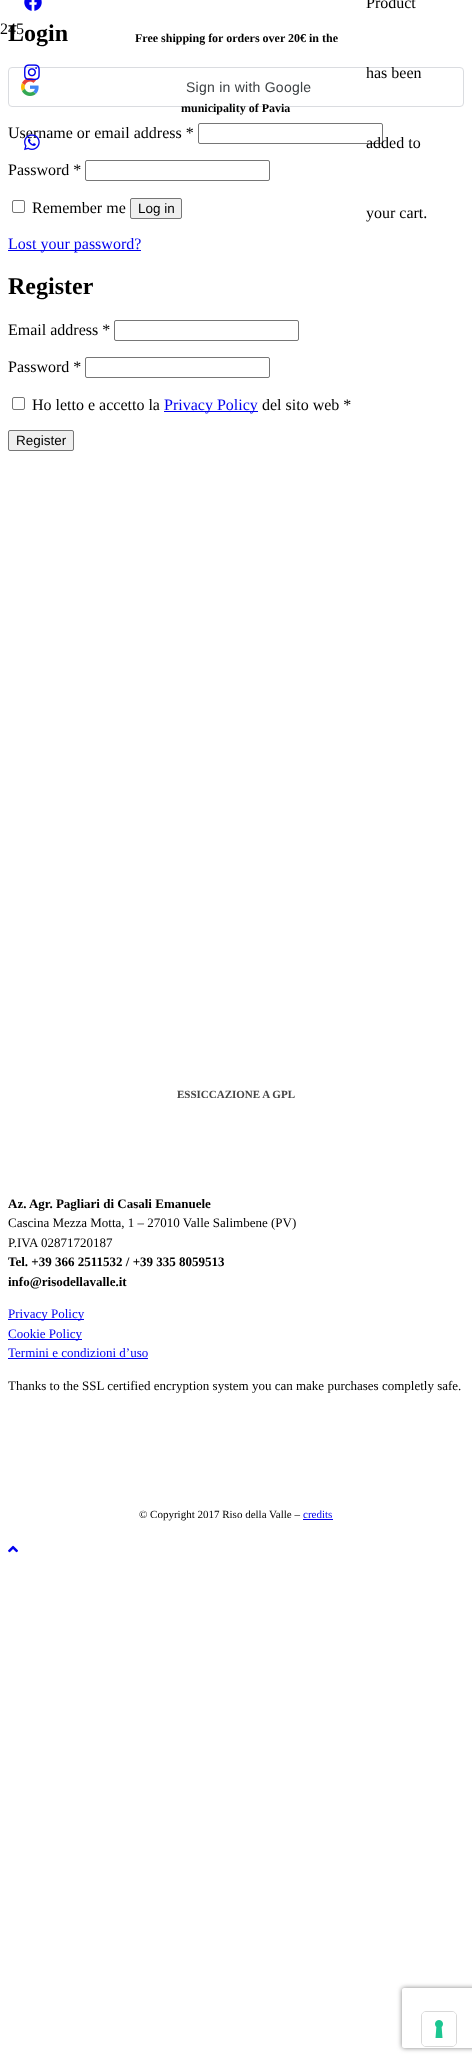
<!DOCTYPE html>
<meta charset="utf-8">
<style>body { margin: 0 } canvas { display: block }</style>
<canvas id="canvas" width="472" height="2062"></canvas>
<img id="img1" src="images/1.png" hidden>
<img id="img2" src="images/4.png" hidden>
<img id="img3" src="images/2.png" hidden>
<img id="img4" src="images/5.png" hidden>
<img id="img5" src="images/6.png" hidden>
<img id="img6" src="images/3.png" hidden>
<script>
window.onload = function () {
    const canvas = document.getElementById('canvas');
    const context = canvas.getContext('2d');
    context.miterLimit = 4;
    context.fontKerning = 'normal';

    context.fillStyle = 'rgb(255, 255, 255)';
    context.fillRect(0, 0, 472, 2062);
    context.drawImage(document.getElementById('img1'), 24, 0, 18, 11);
    context.beginPath();
    context.roundRect(8.5, 67.5, 455, 39, 3.5);
    context.strokeStyle = 'rgb(218, 220, 224)';
    context.stroke();
    context.drawImage(document.getElementById('img2'), 21, 78, 18, 18);
    context.drawImage(document.getElementById('img3'), 24, 64, 16, 17);
    context.beginPath();
    context.roundRect(198.5, 123.5, 184, 20, 1.5);
    context.strokeStyle = 'rgb(118, 118, 118)';
    context.stroke();
    context.beginPath();
    context.roundRect(85.5, 160.5, 184, 20, 1.5);
    context.stroke();
    context.beginPath();
    context.roundRect(12.5, 200.5, 12, 12, 1.5);
    context.stroke();
    context.fillStyle = 'rgb(239, 239, 239)';
    context.beginPath();
    context.roundRect(130.5, 198.5, 51, 20, 1.5);
    context.fill();
    context.stroke();
    context.fillStyle = 'rgb(0, 0, 238)';
    context.fillRect(8, 250, 133, 1);
    context.beginPath();
    context.roundRect(114.5, 320.5, 184, 20, 1.5);
    context.stroke();
    context.beginPath();
    context.roundRect(85.5, 357.5, 184, 20, 1.5);
    context.stroke();
    context.beginPath();
    context.roundRect(12.5, 397.5, 12, 12, 1.5);
    context.stroke();
    context.fillRect(164, 411, 94, 1);
    context.fillStyle = 'rgb(239, 239, 239)';
    context.beginPath();
    context.roundRect(8.5, 430.5, 65, 20, 1.5);
    context.fill();
    context.stroke();
    context.fillStyle = 'rgb(0, 0, 238)';
    context.fillRect(8, 1319, 76, 1);
    context.fillRect(8, 1339, 74, 1);
    context.fillRect(8, 1358, 140, 1);
    context.fillRect(303, 1519, 30, 1);
    context.drawImage(document.getElementById('img4'), 8, 1545, 10, 8);
    context.save();
    context.beginPath();
    context.moveTo(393, 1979);
    context.lineTo(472, 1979);
    context.lineTo(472, 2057);
    context.lineTo(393, 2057);
    context.closePath();
    context.moveTo(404, 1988);
    context.lineTo(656, 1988);
    context.bezierCurveTo(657, 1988, 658, 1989, 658, 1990);
    context.lineTo(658, 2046);
    context.bezierCurveTo(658, 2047, 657, 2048, 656, 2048);
    context.lineTo(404, 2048);
    context.bezierCurveTo(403, 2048, 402, 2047, 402, 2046);
    context.lineTo(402, 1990);
    context.bezierCurveTo(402, 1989, 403, 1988, 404, 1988);
    context.closePath();
    context.clip('evenodd');
    context.fillStyle = 'rgb(128, 128, 128)';
    context.filter = 'blur(2.5px)';
    context.beginPath();
    context.roundRect(402, 1988, 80, 60, 2);
    context.fill();
    context.filter = 'none';
    context.restore();
    context.beginPath();
    context.roundRect(421.5, 2011.5, 35, 35, 4.5);
    context.strokeStyle = 'rgb(217, 217, 217)';
    context.stroke();
    context.fillStyle = 'rgb(255, 255, 255)';
    context.beginPath();
    context.roundRect(422, 2012, 34, 34, 4);
    context.fill();
    context.drawImage(document.getElementById('img5'), 435, 2020, 8, 18);
    context.font = 'bold 12px Liberation Serif';
    context.fillStyle = 'rgb(0, 0, 0)';
    context.fillText('Free shipping for orders over 20€ in the', 135, 42);
    context.fillText('municipality of Pavia', 181, 112);
    context.font = '16px Liberation Serif';
    context.fillText('Product', 366, 8);
    context.fillText('has been', 366, 78);
    context.fillText('added to', 366, 148);
    context.fillText('your cart.', 366, 218);
    context.font = 'bold 24px Liberation Serif';
    context.fillText('Login', 8, 41);
    context.font = '16px Liberation Serif';
    context.fillText('245', 0, 34);
    context.letterSpacing = '0.25px';
    context.font = '14px Liberation Sans';
    context.fillStyle = 'rgb(60, 64, 67)';
    context.fillText('Sign in with Google', 186, 92);
    context.letterSpacing = '0px';
    context.font = '16px Liberation Serif';
    context.fillStyle = 'rgb(0, 0, 0)';
    context.fillText('Username or email address *', 8, 138);
    context.drawImage(document.getElementById('img6'), 24, 134, 16, 17);
    context.fillText('Password *', 8, 175);
    context.fillText('Remember me', 32, 213);
    context.font = '13.5px Liberation Sans';
    context.fillText('Log in', 138, 213);
    context.font = '16px Liberation Serif';
    context.fillStyle = 'rgb(0, 0, 238)';
    context.fillText('Lost your password?', 8, 249);
    context.font = 'bold 24px Liberation Serif';
    context.fillStyle = 'rgb(0, 0, 0)';
    context.fillText('Register', 8, 294);
    context.font = '16px Liberation Serif';
    context.fillText('Email address *', 8, 335);
    context.fillText('Password *', 8, 372);
    context.fillText('Ho letto e accetto la', 32, 410);
    context.fillStyle = 'rgb(0, 0, 238)';
    context.fillText('Privacy Policy', 164, 410);
    context.fillStyle = 'rgb(0, 0, 0)';
    context.fillText('del sito web *', 262, 410);
    context.font = '13.5px Liberation Sans';
    context.fillText('Register', 16, 445);
    context.font = 'bold 11px Liberation Serif';
    context.fillStyle = 'rgb(68, 68, 68)';
    context.fillText('ESSICCAZIONE A GPL', 177, 1098);
    context.font = 'bold 13px Liberation Serif';
    context.fillStyle = 'rgb(0, 0, 0)';
    context.fillText('Az. Agr. Pagliari di Casali Emanuele', 8, 1208);
    context.font = '13px Liberation Serif';
    context.fillText('Cascina Mezza Motta, 1 – 27010 Valle Salimbene (PV)', 8, 1227);
    context.fillText('P.IVA 02871720187', 8, 1247);
    context.font = 'bold 13px Liberation Serif';
    context.fillText('Tel. +39 366 2511532 / +39 335 8059513', 8, 1266);
    context.fillText('info@risodellavalle.it', 8, 1286);
    context.font = '13px Liberation Serif';
    context.fillStyle = 'rgb(0, 0, 238)';
    context.fillText('Privacy Policy', 8, 1318);
    context.fillText('Cookie Policy', 8, 1338);
    context.fillText('Termini e condizioni d’uso', 8, 1357);
    context.fillStyle = 'rgb(0, 0, 0)';
    context.fillText('Thanks to the SSL certified encryption system you can make purchases completly safe.', 8, 1390);
    context.font = '11px Liberation Serif';
    context.fillText('© Copyright 2017 Riso della Valle –', 139, 1518);
    context.fillStyle = 'rgb(0, 0, 238)';
    context.fillText('credits', 303, 1518);
};
</script>
